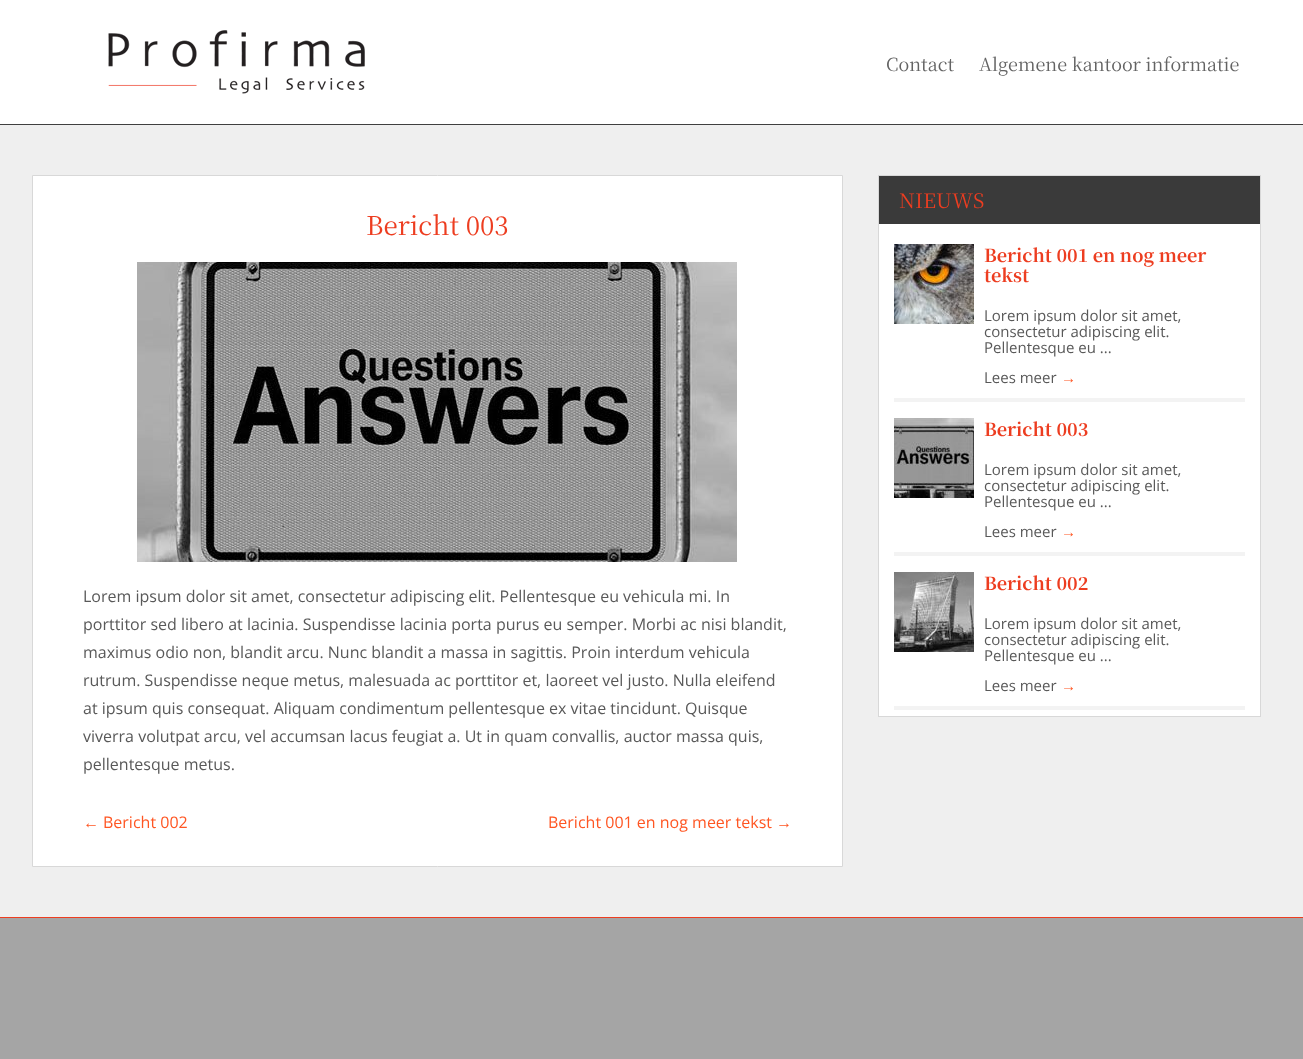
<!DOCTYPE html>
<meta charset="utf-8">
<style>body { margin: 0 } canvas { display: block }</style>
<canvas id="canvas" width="1303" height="1059"></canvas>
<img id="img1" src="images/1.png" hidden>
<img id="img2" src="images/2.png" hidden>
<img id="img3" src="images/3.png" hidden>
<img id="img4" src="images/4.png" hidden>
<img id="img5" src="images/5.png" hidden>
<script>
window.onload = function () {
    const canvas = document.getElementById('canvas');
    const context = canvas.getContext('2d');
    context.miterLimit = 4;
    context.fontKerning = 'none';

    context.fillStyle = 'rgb(165, 165, 165)';
    context.fillRect(0, 0, 1303, 1059);
    context.fillStyle = 'rgb(255, 255, 255)';
    context.fillRect(0, 0, 1303, 124);
    context.fillStyle = 'rgb(63, 63, 63)';
    context.fillRect(0, 124, 1303, 1);
    context.drawImage(document.getElementById('img1'), 108, 30, 257, 64);
    context.fillStyle = 'rgb(239, 239, 239)';
    context.fillRect(0, 125, 1303, 792);
    context.fillStyle = 'rgb(255, 255, 255)';
    context.beginPath();
    context.rect(32.5, 175.5, 810, 691);
    context.fill();
    context.strokeStyle = 'rgb(216, 216, 216)';
    context.stroke();
    context.drawImage(document.getElementById('img2'), 137, 262, 600, 300);
    context.fillRect(879, 224, 381, 492);
    context.strokeRect(878.5, 175.5, 382, 541);
    context.fillStyle = 'rgb(58, 58, 58)';
    context.fillRect(879, 176, 381, 48);
    context.save();
    context.beginPath();
    context.rect(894, 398, 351, 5);
    context.clip();
    context.fillStyle = 'rgba(197, 197, 197, 0.2)';
    context.filter = 'blur(0.5px)';
    context.beginPath();
    context.rect(894, 238, 351, 164);
    context.fill();
    context.filter = 'none';
    context.restore();
    context.drawImage(document.getElementById('img3'), 894, 244, 80, 80);
    context.save();
    context.beginPath();
    context.rect(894, 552, 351, 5);
    context.clip();
    context.fillStyle = 'rgba(197, 197, 197, 0.2)';
    context.filter = 'blur(0.5px)';
    context.beginPath();
    context.rect(894, 412, 351, 144);
    context.fill();
    context.filter = 'none';
    context.restore();
    context.drawImage(document.getElementById('img4'), 894, 418, 80, 80);
    context.save();
    context.beginPath();
    context.rect(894, 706, 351, 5);
    context.clip();
    context.fillStyle = 'rgba(197, 197, 197, 0.2)';
    context.filter = 'blur(0.5px)';
    context.beginPath();
    context.rect(894, 566, 351, 144);
    context.fill();
    context.filter = 'none';
    context.restore();
    context.drawImage(document.getElementById('img5'), 894, 572, 80, 80);
    context.fillStyle = 'rgb(237, 61, 32)';
    context.fillRect(0, 917, 1303, 1);
    context.font = '18px Noto Serif TC';
    context.fillStyle = 'rgb(99, 99, 99)';
    context.fillText('Contact', 886, 71);
    context.fillText('Algemene kantoor informatie', 979, 71);
    context.font = '26px Noto Serif TC';
    context.fillStyle = 'rgb(237, 61, 32)';
    context.fillText('Bericht 003', 366, 235);
    context.font = '16px Open Sans';
    context.fillStyle = 'rgb(89, 89, 89)';
    context.fillText('Lorem ipsum dolor sit amet, consectetur adipiscing elit. Pellentesque eu vehicula mi. In', 83, 602);
    context.fillText('porttitor sed libero at lacinia. Suspendisse lacinia porta purus eu semper. Morbi ac nisi blandit,', 83, 630);
    context.fillText('maximus odio non, blandit arcu. Nunc blandit a massa in sagittis. Proin interdum vehicula', 83, 658);
    context.fillText('rutrum. Suspendisse neque metus, malesuada ac porttitor et, laoreet vel justo. Nulla eleifend', 83, 686);
    context.fillText('at ipsum quis consequat. Aliquam condimentum pellentesque ex vitae tincidunt. Quisque', 83, 714);
    context.fillText('viverra volutpat arcu, vel accumsan lacus feugiat a. Ut in quam convallis, auctor massa quis,', 83, 742);
    context.fillText('pellentesque metus.', 83, 770);
    context.font = '16px Liberation Sans';
    context.fillStyle = 'rgb(255, 86, 35)';
    context.fillText('←', 83, 828);
    context.font = '16px Open Sans';
    context.fillText('Bericht 002', 103, 828);
    context.fillText('Bericht 001 en nog meer tekst', 548, 828);
    context.font = '16px Liberation Sans';
    context.fillText('→', 776, 828);
    context.font = '20px Noto Serif TC';
    context.fillStyle = 'rgb(237, 61, 32)';
    context.fillText('NIEUWS', 899, 208);
    context.font = 'bold 18px Noto Serif TC';
    context.fillText('Bericht 001 en nog meer', 984, 262);
    context.fillText('tekst', 984, 282);
    context.font = '15px Open Sans';
    context.fillStyle = 'rgb(89, 89, 89)';
    context.fillText('Lorem ipsum dolor sit amet,', 984, 321);
    context.fillText('consectetur adipiscing elit.', 984, 337);
    context.fillText('Pellentesque eu ...', 984, 353);
    context.fillText('Lees meer', 984, 383);
    context.font = '15px Liberation Sans';
    context.fillStyle = 'rgb(255, 86, 35)';
    context.fillText('→', 1061, 383);
    context.font = 'bold 18px Noto Serif TC';
    context.fillStyle = 'rgb(237, 61, 32)';
    context.fillText('Bericht 003', 984, 436);
    context.font = '15px Open Sans';
    context.fillStyle = 'rgb(89, 89, 89)';
    context.fillText('Lorem ipsum dolor sit amet,', 984, 475);
    context.fillText('consectetur adipiscing elit.', 984, 491);
    context.fillText('Pellentesque eu ...', 984, 507);
    context.fillText('Lees meer', 984, 537);
    context.font = '15px Liberation Sans';
    context.fillStyle = 'rgb(255, 86, 35)';
    context.fillText('→', 1061, 537);
    context.font = 'bold 18px Noto Serif TC';
    context.fillStyle = 'rgb(237, 61, 32)';
    context.fillText('Bericht 002', 984, 590);
    context.font = '15px Open Sans';
    context.fillStyle = 'rgb(89, 89, 89)';
    context.fillText('Lorem ipsum dolor sit amet,', 984, 629);
    context.fillText('consectetur adipiscing elit.', 984, 645);
    context.fillText('Pellentesque eu ...', 984, 661);
    context.fillText('Lees meer', 984, 691);
    context.font = '15px Liberation Sans';
    context.fillStyle = 'rgb(255, 86, 35)';
    context.fillText('→', 1061, 691);
};
</script>
